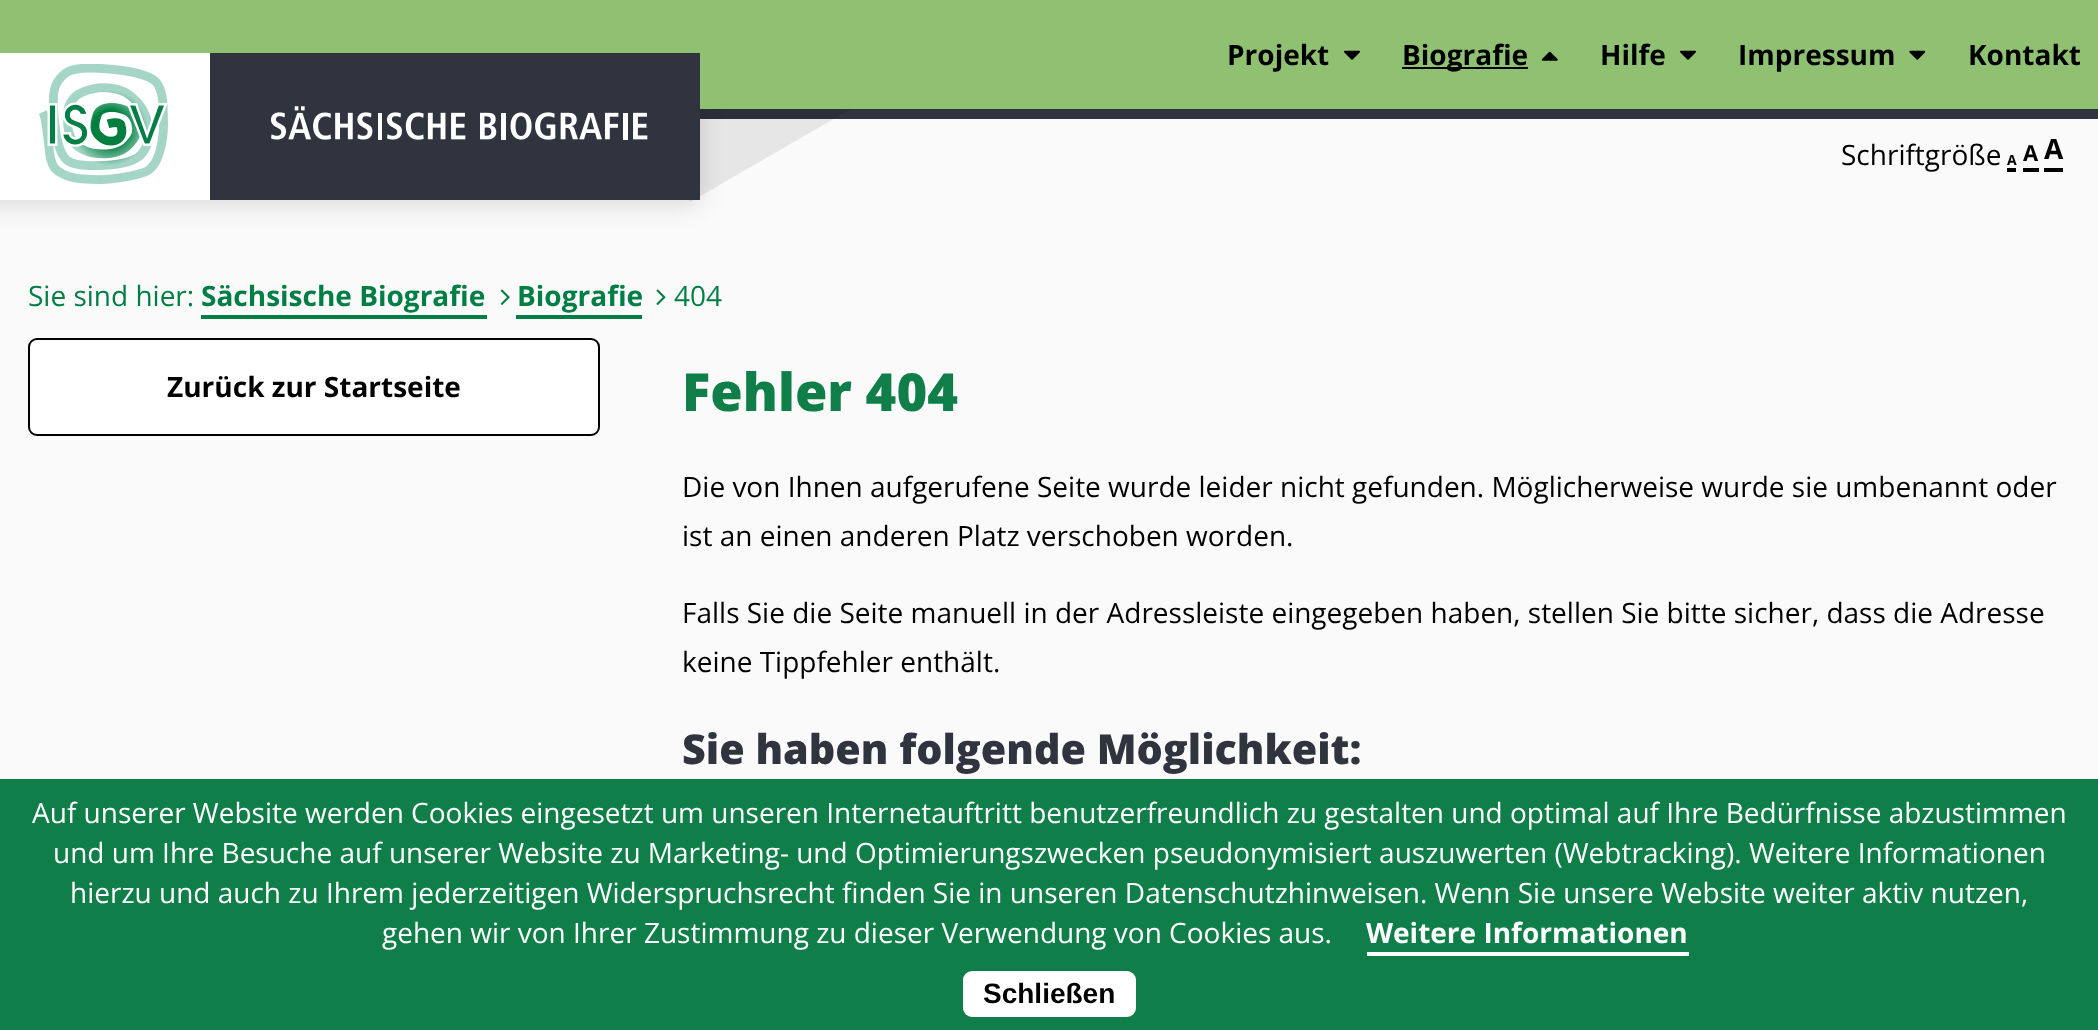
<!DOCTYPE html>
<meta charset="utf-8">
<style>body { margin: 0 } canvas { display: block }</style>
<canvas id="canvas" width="2098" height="1030"></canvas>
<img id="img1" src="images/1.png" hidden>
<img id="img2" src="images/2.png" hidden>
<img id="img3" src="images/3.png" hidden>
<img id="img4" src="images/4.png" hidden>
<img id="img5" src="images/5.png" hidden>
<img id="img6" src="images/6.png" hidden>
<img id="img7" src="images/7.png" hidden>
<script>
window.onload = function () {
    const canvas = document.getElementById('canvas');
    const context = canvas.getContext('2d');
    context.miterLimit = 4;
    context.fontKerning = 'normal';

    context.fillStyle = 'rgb(250, 250, 250)';
    context.fillRect(0, 0, 2098, 1030);
    context.fillStyle = 'rgb(48, 52, 63)';
    context.fillRect(700, 109, 1398, 10);
    context.fillStyle = 'rgba(0, 0, 0, 0.08)';
    context.beginPath();
    context.moveTo(617, 75);
    context.lineTo(1375, -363);
    context.lineTo(1448, -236);
    context.lineTo(690, 202);
    context.closePath();
    context.fill();
    context.fillStyle = 'rgba(0, 0, 0, 0.13)';
    context.filter = 'blur(11.5px)';
    context.beginPath();
    context.rect(-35, 58, 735, 147);
    context.fill();
    context.filter = 'none';
    context.fillStyle = 'rgb(144, 192, 113)';
    context.fillRect(0, 0, 2098, 109);
    context.fillStyle = 'rgb(255, 255, 255)';
    context.fillRect(0, 53, 210, 147);
    context.drawImage(document.getElementById('img1'), 39, 64, 129, 120);
    context.fillStyle = 'rgb(48, 52, 63)';
    context.fillRect(210, 53, 490, 147);
    context.drawImage(document.getElementById('img2'), 271, 106, 377, 34);
    context.drawImage(document.getElementById('img3'), 1344, 50, 16, 10);
    context.fillStyle = 'rgb(0, 0, 0)';
    context.fillRect(1402, 67, 126, 2);
    context.drawImage(document.getElementById('img4'), 1541, 51, 17, 10);
    context.drawImage(document.getElementById('img3'), 1680, 50, 16, 10);
    context.drawImage(document.getElementById('img5'), 1909, 50, 17, 10);
    context.fillRect(2007, 168, 9, 4);
    context.fillRect(2023, 168, 16, 4);
    context.fillRect(2044, 168, 19, 4);
    context.fillStyle = 'rgb(0, 126, 70)';
    context.fillRect(201, 315, 286, 4);
    context.drawImage(document.getElementById('img6'), 500, 289, 10, 16);
    context.fillRect(516, 315, 126, 4);
    context.drawImage(document.getElementById('img7'), 656, 289, 10, 16);
    context.fillStyle = 'rgb(255, 255, 255)';
    context.beginPath();
    context.roundRect(29, 339, 570, 96, 8);
    context.fill();
    context.strokeStyle = 'rgb(0, 0, 0)';
    context.lineWidth = 2;
    context.stroke();
    context.fillStyle = 'rgb(15, 126, 72)';
    context.fillRect(0, 779, 2098, 251);
    context.fillStyle = 'rgb(255, 255, 255)';
    context.fillRect(1367, 952, 322, 4);
    context.beginPath();
    context.roundRect(963, 971, 173, 46, 9);
    context.fill();
    context.font = 'bold 28px Open Sans';
    context.fillStyle = 'rgb(0, 0, 0)';
    context.fillText('Projekt', 1227, 65);
    context.fillText('Biografie', 1402, 65);
    context.fillText('Hilfe', 1600, 65);
    context.fillText('Impressum', 1738, 65);
    context.fillText('Kontakt', 1968, 65);
    context.font = '28px Open Sans';
    context.fillText('Schriftgröße', 1841, 165);
    context.font = 'bold 14px Open Sans';
    context.fillText('A', 2007, 165);
    context.font = 'bold 22px Open Sans';
    context.fillText('A', 2023, 161);
    context.font = 'bold 28px Open Sans';
    context.fillText('A', 2044, 159);
    context.font = '28px Open Sans';
    context.fillStyle = 'rgb(0, 126, 70)';
    context.fillText('Sie sind hier:', 28, 306);
    context.font = 'bold 28px Open Sans';
    context.fillText('Sächsische Biografie', 201, 306);
    context.fillText('Biografie', 517, 306);
    context.font = '28px Open Sans';
    context.fillText('404', 674, 306);
    context.font = 'bold 28px Open Sans';
    context.fillStyle = 'rgb(0, 0, 0)';
    context.fillText('Zurück zur Startseite', 167, 397);
    context.font = '800 52.5px Open Sans';
    context.fillStyle = 'rgb(15, 126, 72)';
    context.fillText('Fehler 404', 682, 411);
    context.font = '28px Open Sans';
    context.fillStyle = 'rgb(0, 0, 0)';
    context.fillText('Die von Ihnen aufgerufene Seite wurde leider nicht gefunden. Möglicherweise wurde sie umbenannt oder', 682, 497);
    context.fillText('ist an einen anderen Platz verschoben worden.', 682, 546);
    context.fillText('Falls Sie die Seite manuell in der Adressleiste eingegeben haben, stellen Sie bitte sicher, dass die Adresse', 682, 623);
    context.fillText('keine Tippfehler enthält.', 682, 672);
    context.font = '800 41.25px Open Sans';
    context.fillStyle = 'rgb(48, 52, 63)';
    context.fillText('Sie haben folgende Möglichkeit:', 682, 764);
    context.font = '28px Open Sans';
    context.fillStyle = 'rgb(255, 255, 255)';
    context.fillText('Auf unserer Website werden Cookies eingesetzt um unseren Internetauftritt benutzerfreundlich zu gestalten und optimal auf Ihre Bedürfnisse abzustimmen', 32, 823);
    context.fillText('und um Ihre Besuche auf unserer Website zu Marketing- und Optimierungszwecken pseudonymisiert auszuwerten (Webtracking). Weitere Informationen', 53, 863);
    context.fillText('hierzu und auch zu Ihrem jederzeitigen Widerspruchsrecht finden Sie in unseren Datenschutzhinweisen. Wenn Sie unsere Website weiter aktiv nutzen,', 70, 903);
    context.fillText('gehen wir von Ihrer Zustimmung zu dieser Verwendung von Cookies aus.', 382, 943);
    context.font = 'bold 28px Open Sans';
    context.fillText('Weitere Informationen', 1366, 943);
    context.font = 'bold 28px Liberation Sans';
    context.fillStyle = 'rgb(0, 0, 0)';
    context.fillText('Schließen', 983, 1003);
};
</script>
